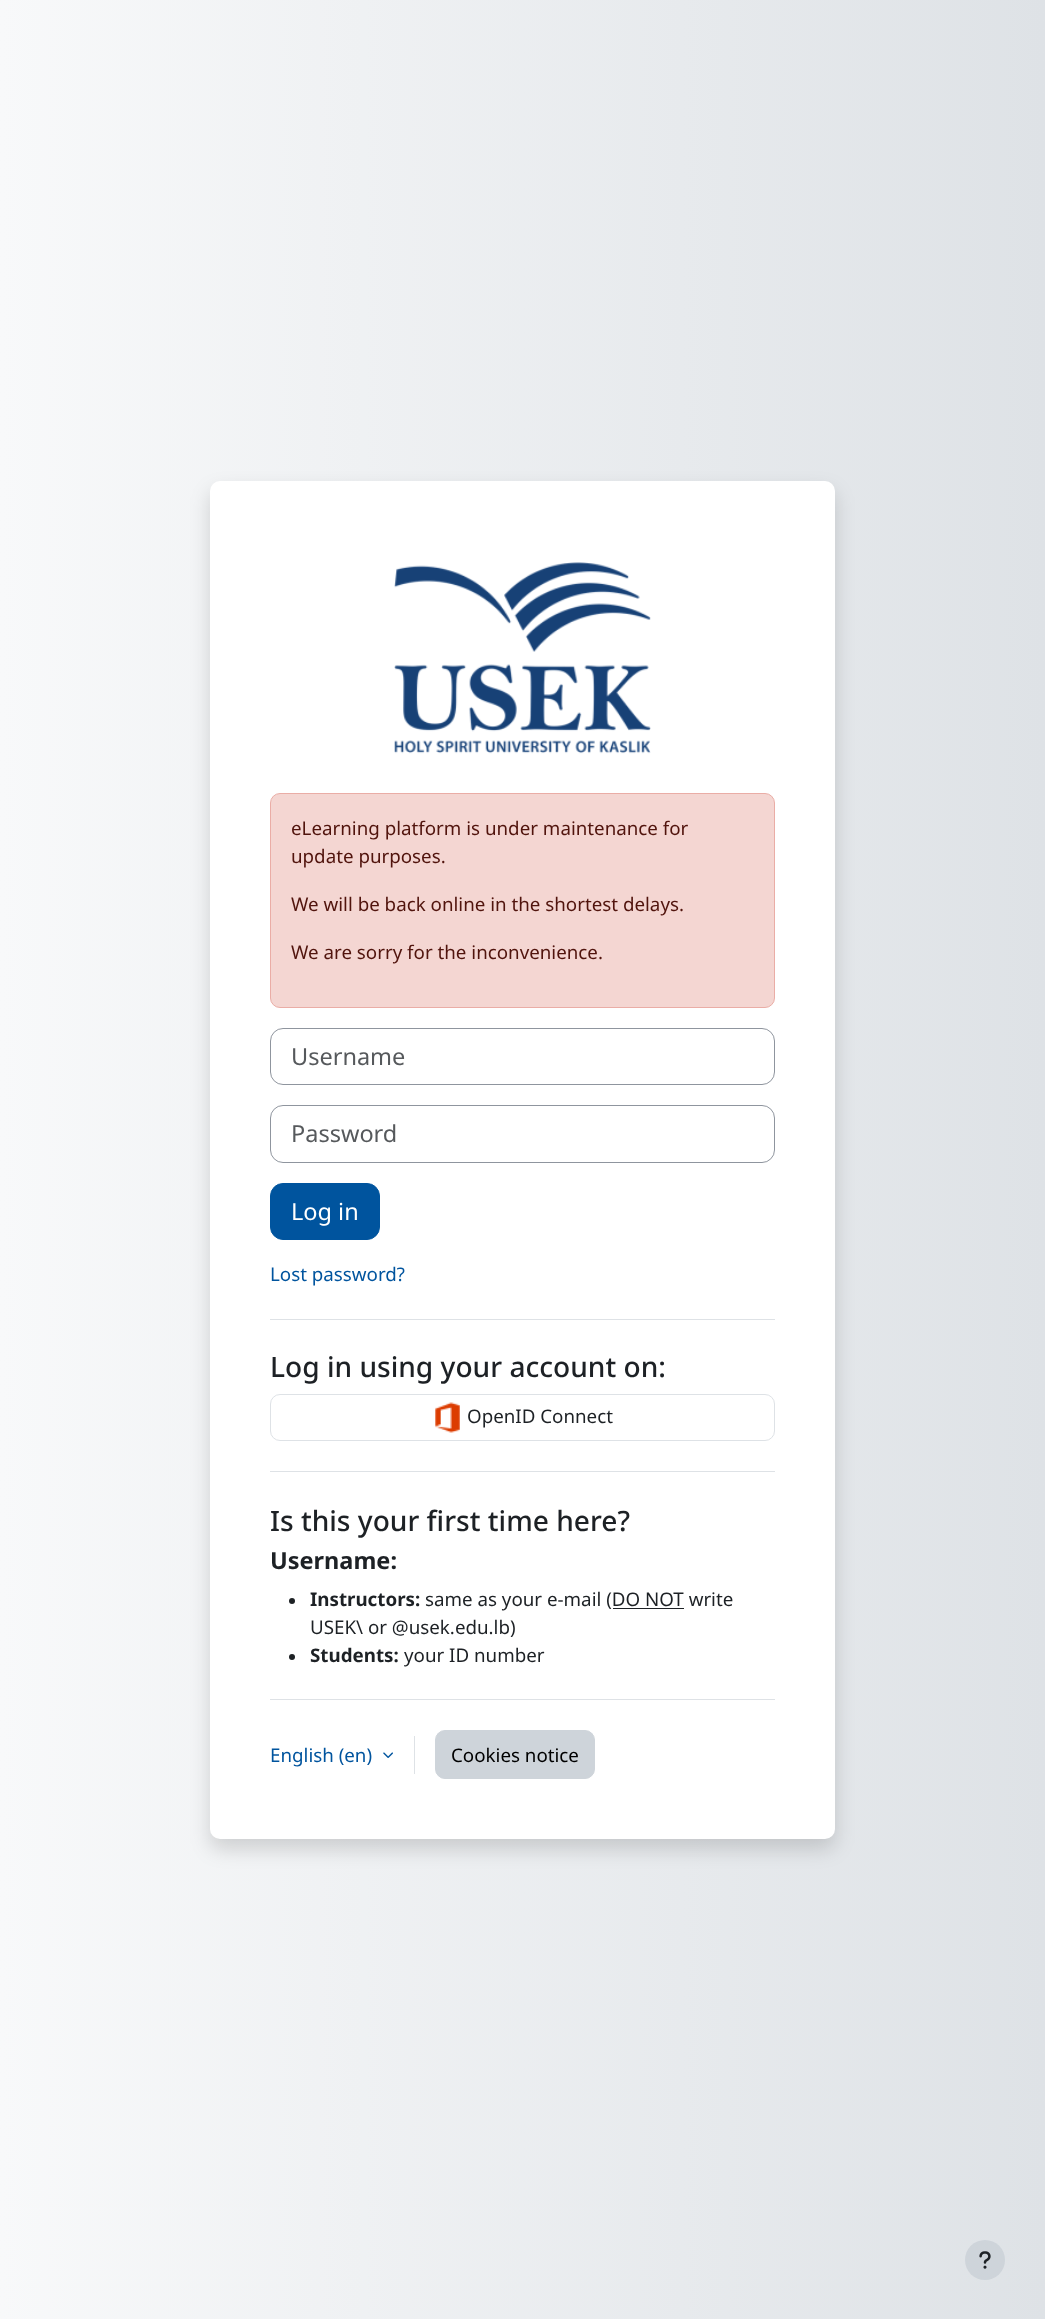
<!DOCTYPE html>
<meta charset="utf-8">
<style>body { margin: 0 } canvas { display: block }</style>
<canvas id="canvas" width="1045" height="2319"></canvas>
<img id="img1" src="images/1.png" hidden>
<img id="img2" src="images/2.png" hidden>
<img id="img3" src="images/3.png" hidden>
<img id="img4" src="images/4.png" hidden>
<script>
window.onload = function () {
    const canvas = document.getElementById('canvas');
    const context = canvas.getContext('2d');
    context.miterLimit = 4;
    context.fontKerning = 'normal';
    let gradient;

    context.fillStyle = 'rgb(255, 255, 255)';
    context.fillRect(0, 0, 1045, 2319);
    gradient = context.createLinearGradient(0, 1160, 1045, 1160);
    gradient.addColorStop(0, 'rgb(248, 249, 250)');
    gradient.addColorStop(1, 'rgb(222, 226, 230)');
    context.fillStyle = gradient;
    context.fillRect(0, 0, 1045, 2319);
    context.fillStyle = 'rgba(0, 0, 0, 0.15)';
    context.filter = 'blur(10px)';
    context.beginPath();
    context.roundRect(210, 491, 625, 1358, 10);
    context.fill();
    context.filter = 'none';
    context.fillStyle = 'rgb(255, 255, 255)';
    context.beginPath();
    context.roundRect(210, 481, 625, 1358, 10);
    context.fill();
    context.drawImage(document.getElementById('img1'), 394, 562, 257, 192);
    context.fillStyle = 'rgb(244, 214, 210)';
    context.beginPath();
    context.roundRect(270.5, 793.5, 504, 214, 9.5);
    context.fill();
    context.strokeStyle = 'rgb(234, 173, 166)';
    context.stroke();
    context.beginPath();
    context.roundRect(270.5, 1028.5, 504, 56, 12.5);
    context.strokeStyle = 'rgb(143, 149, 158)';
    context.stroke();
    context.beginPath();
    context.roundRect(270.5, 1105.5, 504, 57, 12.5);
    context.stroke();
    context.fillStyle = 'rgb(0, 84, 158)';
    context.beginPath();
    context.roundRect(270.5, 1183.5, 109, 56, 12.5);
    context.fill();
    context.strokeStyle = 'rgb(0, 84, 158)';
    context.stroke();
    context.fillStyle = 'rgb(222, 226, 230)';
    context.fillRect(270, 1319, 505, 1);
    context.beginPath();
    context.roundRect(270.5, 1394.5, 504, 46, 9.5);
    context.strokeStyle = 'rgb(222, 226, 230)';
    context.stroke();
    context.drawImage(document.getElementById('img2'), 435, 1402, 25, 31);
    context.fillRect(270, 1471, 505, 1);
    context.fillStyle = 'rgb(29, 33, 37)';
    context.beginPath();
    context.arc(292, 1601, 3, 0, 2 * Math.PI);
    context.fill();
    context.fillRect(613, 1608, 71, 1);
    context.beginPath();
    context.arc(292, 1657, 3, 0, 2 * Math.PI);
    context.fill();
    context.fillStyle = 'rgb(222, 226, 230)';
    context.fillRect(270, 1699, 505, 1);
    context.drawImage(document.getElementById('img3'), 383, 1752, 10, 6);
    context.fillRect(414, 1736, 1, 38);
    context.fillStyle = 'rgb(206, 212, 218)';
    context.beginPath();
    context.roundRect(435.5, 1730.5, 159, 48, 9.5);
    context.fill();
    context.strokeStyle = 'rgb(206, 212, 218)';
    context.stroke();
    context.beginPath();
    context.arc(985, 2260, 20, 0, 2 * Math.PI);
    context.fill();
    context.drawImage(document.getElementById('img4'), 979, 2251, 12, 18);
    context.font = '18.75px Noto Sans';
    context.fillStyle = 'rgb(81, 20, 13)';
    context.fillText('eLearning platform is under maintenance for', 291, 835);
    context.fillText('update purposes.', 291, 863);
    context.fillText('We will be back online in the shortest delays.', 291, 911);
    context.fillText('We are sorry for the inconvenience.', 291, 959);
    context.font = '23.5px Noto Sans';
    context.fillStyle = 'rgb(86, 89, 92)';
    context.fillText('Username', 291, 1065);
    context.fillText('Password', 291, 1142);
    context.fillStyle = 'rgb(255, 255, 255)';
    context.fillText('Log in', 291, 1220);
    context.font = '18.75px Noto Sans';
    context.fillStyle = 'rgb(0, 84, 158)';
    context.fillText('Lost password?', 270, 1281);
    context.font = '500 28.1px Noto Sans';
    context.fillStyle = 'rgb(29, 33, 37)';
    context.fillText('Log in using your account on:', 270, 1377);
    context.font = '18.75px Noto Sans';
    context.fillText('OpenID Connect', 467, 1423);
    context.font = '500 28.1px Noto Sans';
    context.fillText('Is this your first time here?', 270, 1531);
    context.font = 'bold 23.5px Noto Sans';
    context.fillText('Username:', 270, 1569);
    context.font = 'bold 18.75px Noto Sans';
    context.fillText('Instructors:', 310, 1606);
    context.font = '18.75px Noto Sans';
    context.fillText('same as your e-mail (DO NOT write', 425, 1606);
    context.fillText('USEK\\ or @usek.edu.lb)', 310, 1634);
    context.font = 'bold 18.75px Noto Sans';
    context.fillText('Students:', 310, 1662);
    context.font = '18.75px Noto Sans';
    context.fillText('your ID number', 404, 1662);
    context.fillStyle = 'rgb(0, 84, 158)';
    context.fillText('English (en)', 270, 1762);
    context.fillStyle = 'rgb(0, 0, 0)';
    context.fillText('Cookies notice', 451, 1762);
};
</script>
